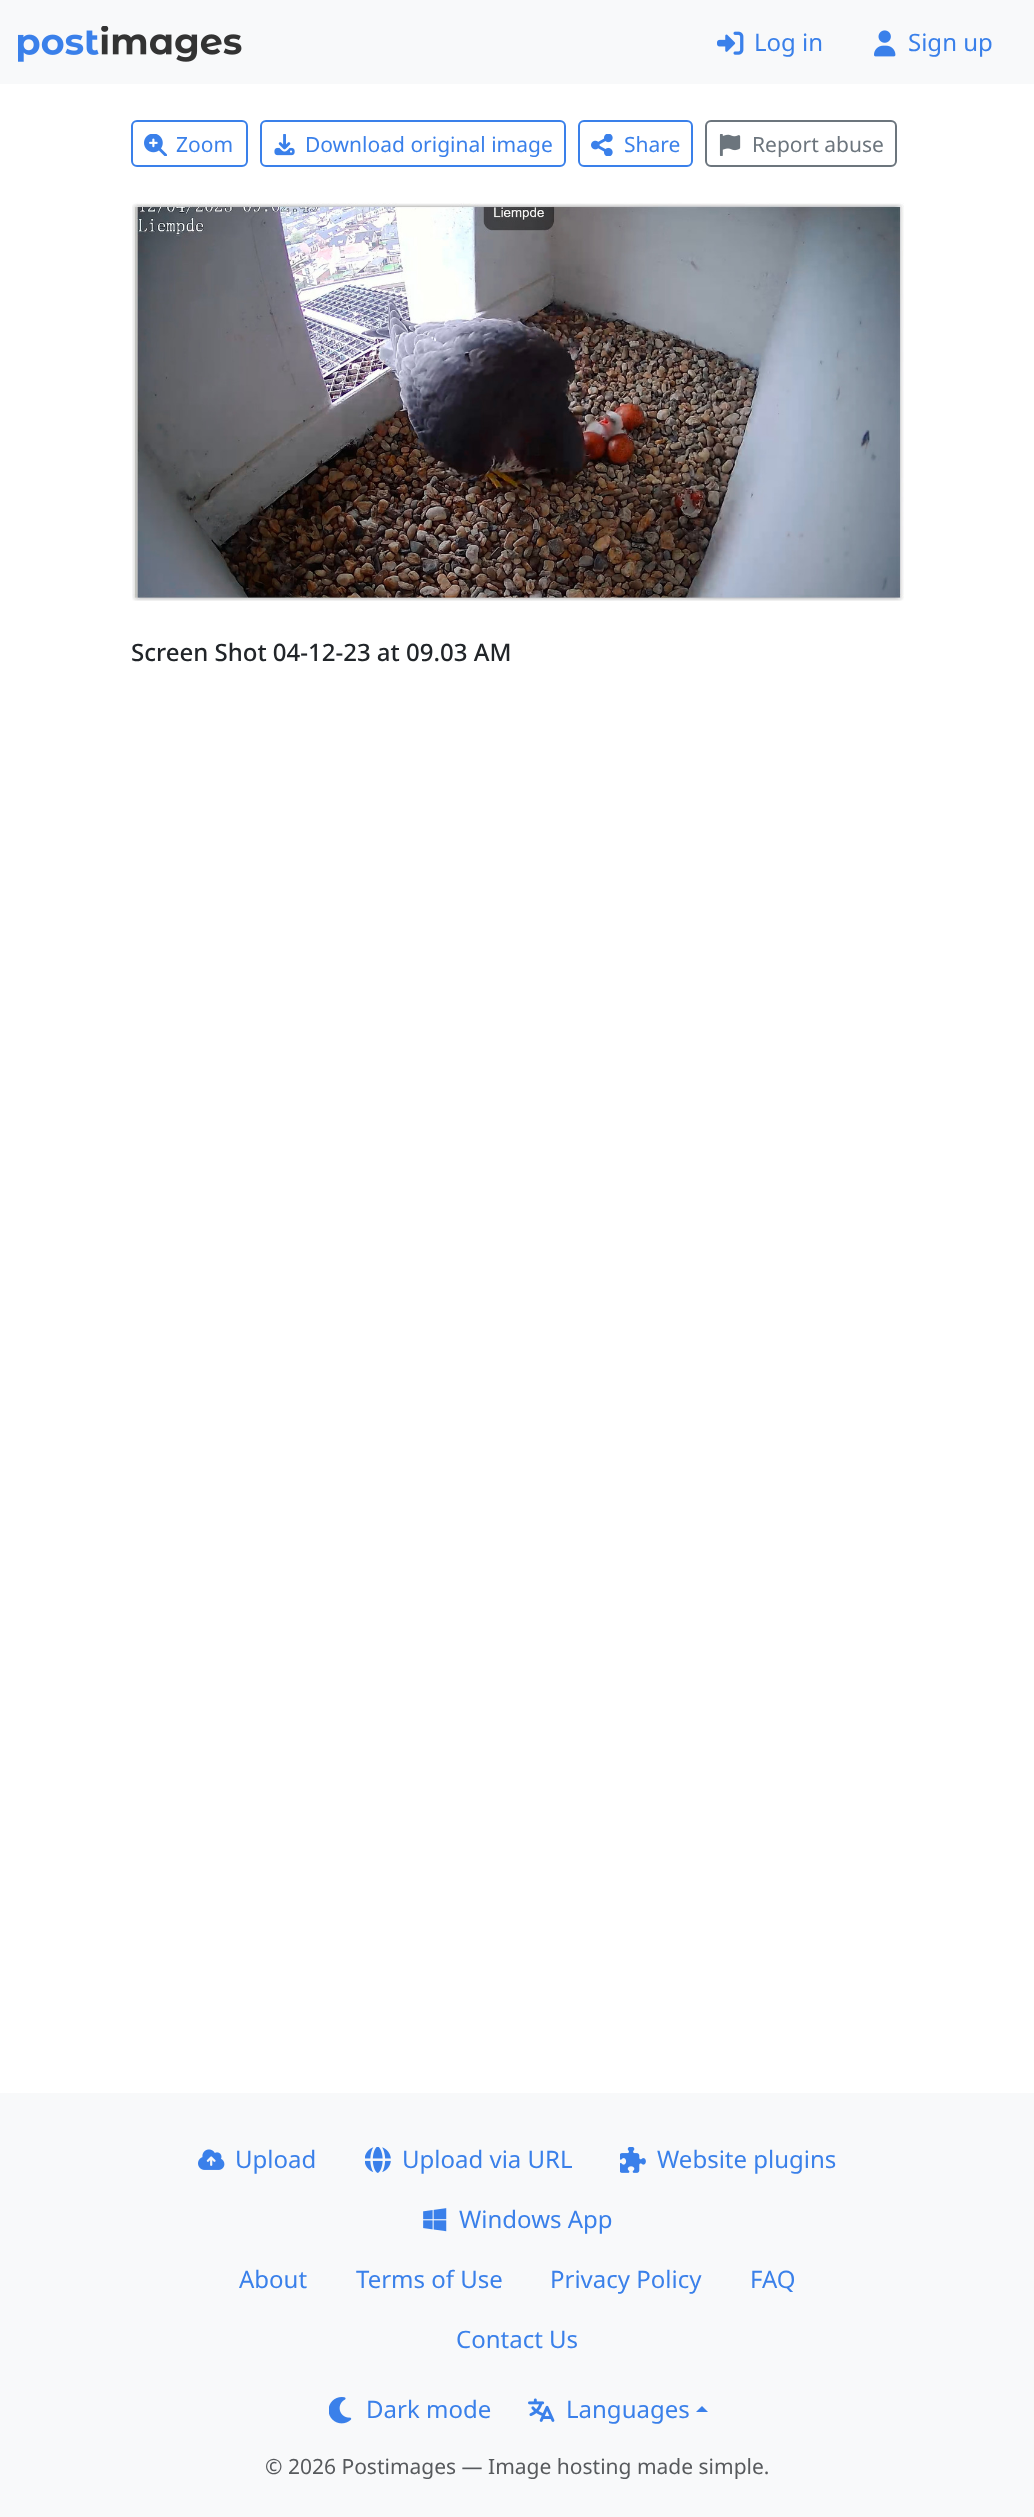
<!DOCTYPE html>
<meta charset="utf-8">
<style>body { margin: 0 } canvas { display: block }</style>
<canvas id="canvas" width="1034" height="2517"></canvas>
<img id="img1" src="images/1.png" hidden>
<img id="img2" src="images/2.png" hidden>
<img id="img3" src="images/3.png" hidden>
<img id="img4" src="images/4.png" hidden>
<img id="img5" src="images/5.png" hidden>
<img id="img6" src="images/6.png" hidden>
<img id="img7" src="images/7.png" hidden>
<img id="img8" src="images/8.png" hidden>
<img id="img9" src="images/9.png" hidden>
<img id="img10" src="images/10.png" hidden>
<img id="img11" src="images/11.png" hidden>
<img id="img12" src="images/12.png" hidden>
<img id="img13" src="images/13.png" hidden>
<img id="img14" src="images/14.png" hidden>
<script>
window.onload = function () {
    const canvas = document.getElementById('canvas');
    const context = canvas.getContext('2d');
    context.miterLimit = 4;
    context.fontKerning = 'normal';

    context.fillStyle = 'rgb(255, 255, 255)';
    context.fillRect(0, 0, 1034, 2517);
    context.fillStyle = 'rgb(248, 249, 250)';
    context.fillRect(0, 0, 1034, 84);
    context.drawImage(document.getElementById('img1'), 18, 26, 224, 36);
    context.drawImage(document.getElementById('img2'), 717, 31, 27, 24);
    context.drawImage(document.getElementById('img3'), 874, 30, 22, 27);
    context.beginPath();
    context.roundRect(132, 121, 115, 45, 5);
    context.strokeStyle = 'rgb(58, 128, 234)';
    context.lineWidth = 2;
    context.stroke();
    context.drawImage(document.getElementById('img4'), 144, 134, 23, 22);
    context.beginPath();
    context.roundRect(261, 121, 304, 45, 5);
    context.stroke();
    context.drawImage(document.getElementById('img5'), 274, 134, 21, 22);
    context.beginPath();
    context.roundRect(579, 121, 113, 45, 5);
    context.stroke();
    context.drawImage(document.getElementById('img6'), 591, 134, 22, 22);
    context.beginPath();
    context.roundRect(706, 121, 190, 45, 5);
    context.strokeStyle = 'rgb(108, 117, 125)';
    context.stroke();
    context.drawImage(document.getElementById('img7'), 719, 134, 22, 22);
    context.drawImage(document.getElementById('img8'), 132, 202, 772, 399);
    context.fillRect(0, 2093, 1034, 424);
    context.drawImage(document.getElementById('img9'), 198, 2149, 27, 21);
    context.drawImage(document.getElementById('img10'), 365, 2147, 26, 26);
    context.drawImage(document.getElementById('img11'), 620, 2147, 26, 26);
    context.drawImage(document.getElementById('img12'), 423, 2208, 24, 24);
    context.drawImage(document.getElementById('img13'), 329, 2397, 23, 27);
    context.drawImage(document.getElementById('img14'), 528, 2398, 27, 24);
    context.fillStyle = 'rgb(58, 128, 234)';
    context.beginPath();
    context.moveTo(708, 2412);
    context.lineTo(696, 2412);
    context.lineTo(702, 2406);
    context.closePath();
    context.fill();
    context.font = '24px Noto Sans';
    context.fillText('Log in', 754, 51);
    context.fillText('Sign up', 908, 51);
    context.font = '21px Noto Sans';
    context.fillText('Zoom', 176, 152);
    context.fillText('Download original image', 305, 152);
    context.fillText('Share', 624, 152);
    context.fillStyle = 'rgb(108, 117, 125)';
    context.fillText('Report abuse', 752, 152);
    context.font = '500 24px Noto Sans';
    context.fillStyle = 'rgb(33, 37, 41)';
    context.fillText('Screen Shot 04-12-23 at 09.03 AM', 131, 661);
    context.font = '24px Noto Sans';
    context.fillStyle = 'rgb(58, 128, 234)';
    context.fillText('Upload', 235, 2168);
    context.fillText('Upload via URL', 402, 2168);
    context.fillText('Website plugins', 657, 2168);
    context.fillText('Windows App', 459, 2228);
    context.fillText('About', 239, 2288);
    context.fillText('Terms of Use', 356, 2288);
    context.fillText('Privacy Policy', 550, 2288);
    context.fillText('FAQ', 750, 2288);
    context.fillText('Contact Us', 456, 2348);
    context.fillText('Dark mode', 366, 2418);
    context.fillText('Languages', 566, 2418);
    context.font = '21px Noto Sans';
    context.fillStyle = 'rgb(87, 90, 93)';
    context.fillText('© 2026 Postimages — Image hosting made simple.', 265, 2474);
};
</script>
